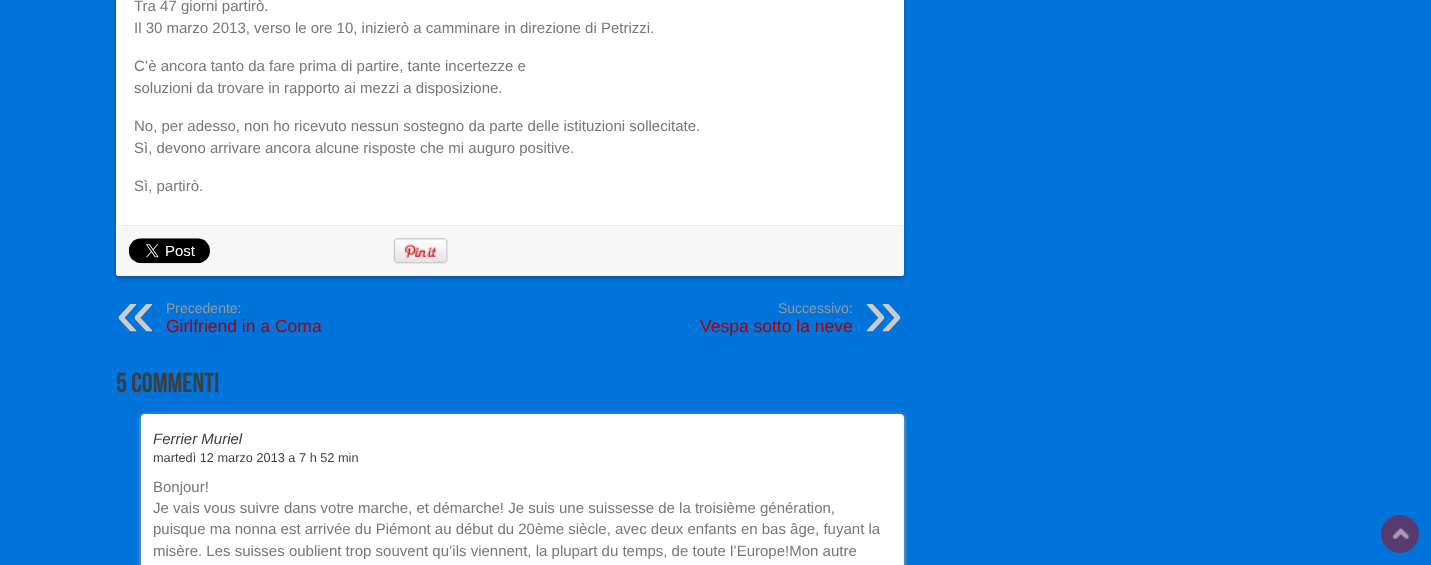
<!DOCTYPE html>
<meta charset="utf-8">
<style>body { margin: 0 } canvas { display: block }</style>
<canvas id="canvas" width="1431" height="565"></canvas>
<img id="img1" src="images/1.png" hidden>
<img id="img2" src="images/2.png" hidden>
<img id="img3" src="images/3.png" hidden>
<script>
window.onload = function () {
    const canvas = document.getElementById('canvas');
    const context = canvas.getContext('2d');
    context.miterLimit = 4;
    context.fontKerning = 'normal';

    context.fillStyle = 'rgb(0, 116, 218)';
    context.fillRect(0, 0, 1431, 565);
    context.fillStyle = 'rgba(34, 25, 25, 0.4)';
    context.filter = 'blur(2px)';
    context.beginPath();
    context.roundRect(116, -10, 788, 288, 4);
    context.fill();
    context.filter = 'none';
    context.fillStyle = 'rgb(255, 255, 255)';
    context.beginPath();
    context.roundRect(116, -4, 788, 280, 4);
    context.fill();
    context.fillStyle = 'rgb(247, 247, 247)';
    context.beginPath();
    context.roundRect(116, 225, 788, 51, 2.5);
    context.fill();
    context.fillStyle = 'rgb(234, 234, 234)';
    context.fillRect(118, 225, 785, 1);
    context.drawImage(document.getElementById('img1'), 128, 238, 82, 26);
    context.drawImage(document.getElementById('img2'), 393, 238, 55, 26);
    context.fillStyle = 'rgb(181, 181, 181)';
    context.filter = 'blur(2px)';
    context.beginPath();
    context.roundRect(141, 415, 763, 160, 4);
    context.fill();
    context.filter = 'none';
    context.fillStyle = 'rgb(255, 255, 255)';
    context.beginPath();
    context.roundRect(141, 414, 763, 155, 4);
    context.fill();
    context.fillStyle = 'rgb(88, 59, 110)';
    context.beginPath();
    context.arc(1400, 534, 19, 0, 2 * Math.PI);
    context.fill();
    context.drawImage(document.getElementById('img3'), 1392, 527, 18, 12);
    context.font = '15px Liberation Sans';
    context.fillStyle = 'rgb(119, 119, 119)';
    context.fillText('Tra 47 giorni partirò.', 134, 11);
    context.fillText('Il 30 marzo 2013, verso le ore 10, inizierò a camminare in direzione di Petrizzi.', 134, 33);
    context.fillText('C’è ancora tanto da fare prima di partire, tante incertezze e', 134, 71);
    context.fillText('soluzioni da trovare in rapporto ai mezzi a disposizione.', 134, 93);
    context.fillText('No, per adesso, non ho ricevuto nessun sostegno da parte delle istituzioni sollecitate.', 134, 131);
    context.fillText('Sì, devono arrivare ancora alcune risposte che mi auguro positive.', 134, 153);
    context.fillText('Sì, partirò.', 134, 191);
    context.font = '70px Liberation Sans';
    context.fillStyle = 'rgb(204, 204, 204)';
    context.fillText('«', 116, 336);
    context.font = '14px Liberation Sans';
    context.fillStyle = 'rgb(153, 153, 153)';
    context.fillText('Precedente:', 166, 313);
    context.font = '17.5px Liberation Sans';
    context.fillStyle = 'rgb(175, 1, 1)';
    context.fillText('Girlfriend in a Coma', 166, 332);
    context.font = '14px Liberation Sans';
    context.fillStyle = 'rgb(153, 153, 153)';
    context.fillText('Successivo:', 778, 313);
    context.font = '70px Liberation Sans';
    context.fillStyle = 'rgb(204, 204, 204)';
    context.fillText('»', 864, 336);
    context.font = '17.5px Liberation Sans';
    context.fillStyle = 'rgb(175, 1, 1)';
    context.fillText('Vespa sotto la neve', 700, 332);
    context.font = '27.5px Bebas Neue';
    context.fillStyle = 'rgb(62, 62, 62)';
    context.fillText('5 Commenti', 116, 392);
    context.font = 'italic 15px Liberation Sans';
    context.fillText('Ferrier Muriel', 153, 444);
    context.font = '12.75px Liberation Sans';
    context.fillText('martedì 12 marzo 2013 a 7 h 52 min', 153, 462);
    context.font = '15px Liberation Sans';
    context.fillStyle = 'rgb(119, 119, 119)';
    context.fillText('Bonjour!', 153, 492);
    context.fillText('Je vais vous suivre dans votre marche, et démarche! Je suis une suissesse de la troisième génération,', 153, 513);
    context.fillText('puisque ma nonna est arrivée du Piémont au début du 20ème siècle, avec deux enfants en bas âge, fuyant la', 153, 534);
    context.fillText('misère. Les suisses oublient trop souvent qu’ils viennent, la plupart du temps, de toute l’Europe!Mon autre', 153, 556);
};
</script>
